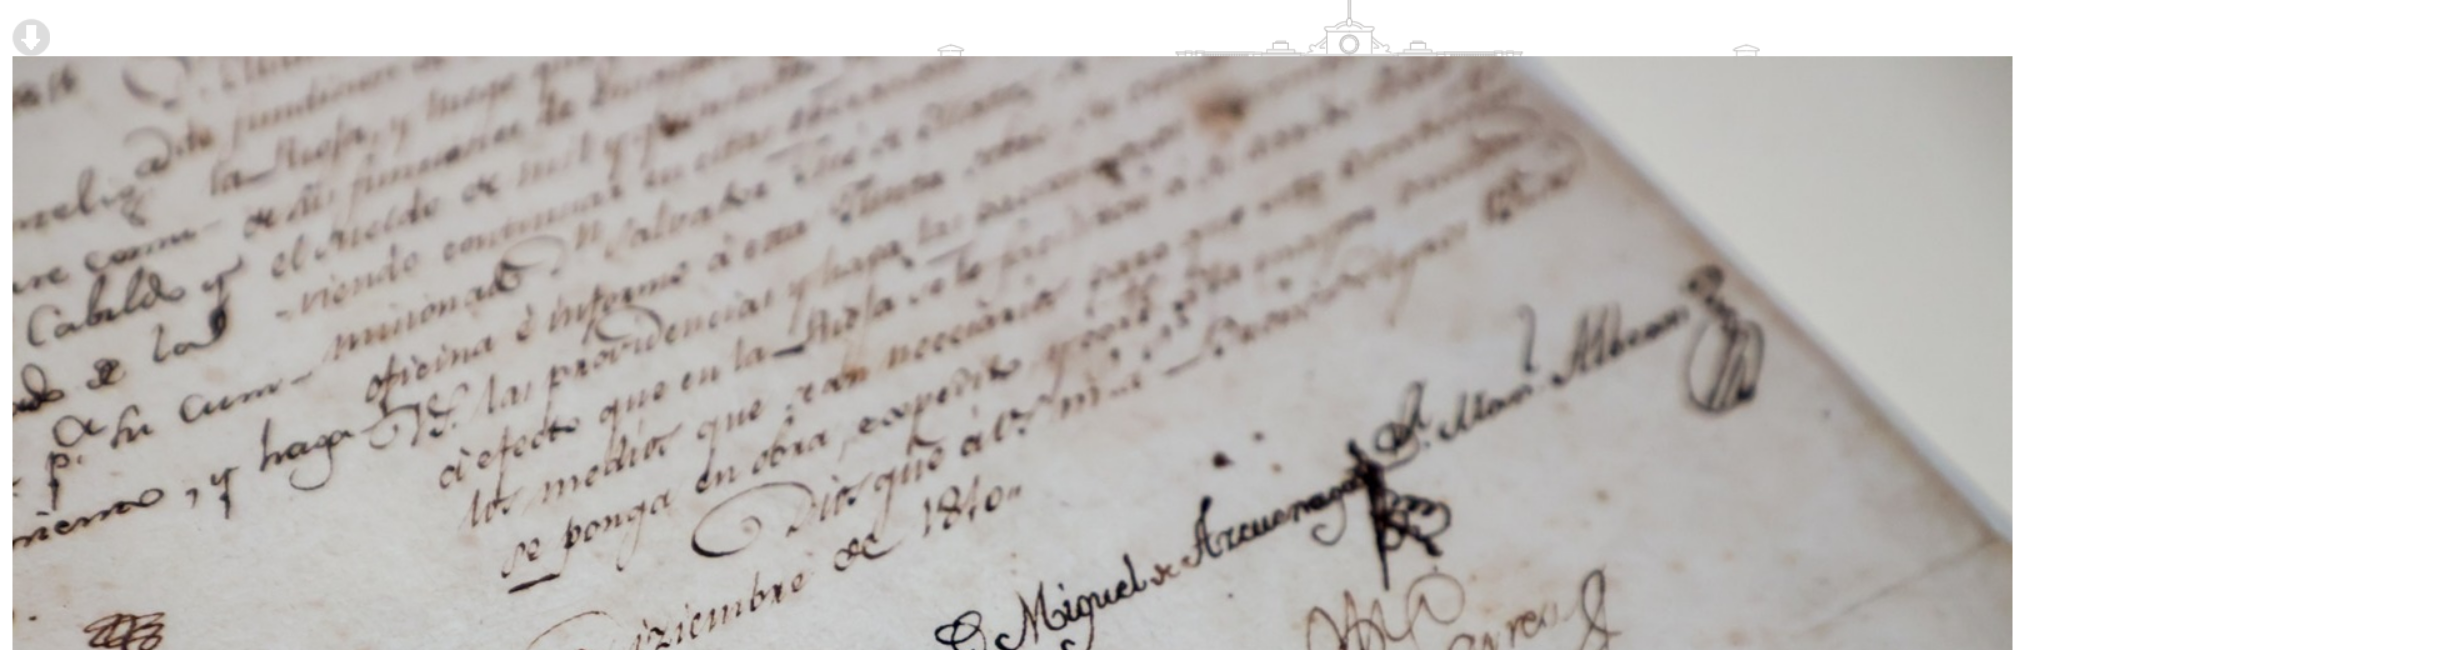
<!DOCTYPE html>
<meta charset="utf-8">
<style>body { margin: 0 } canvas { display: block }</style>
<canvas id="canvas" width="2445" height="650"></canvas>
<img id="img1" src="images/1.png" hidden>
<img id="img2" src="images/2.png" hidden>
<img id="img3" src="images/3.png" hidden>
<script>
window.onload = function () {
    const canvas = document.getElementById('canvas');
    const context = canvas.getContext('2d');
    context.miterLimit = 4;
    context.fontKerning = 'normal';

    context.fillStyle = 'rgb(255, 255, 255)';
    context.fillRect(0, 0, 2445, 650);
    context.drawImage(document.getElementById('img1'), 937, 0, 823, 57);
    context.drawImage(document.getElementById('img2'), 12, 18, 38, 39);
    context.drawImage(document.getElementById('img3'), 12, 56, 2001, 594);
};
</script>
